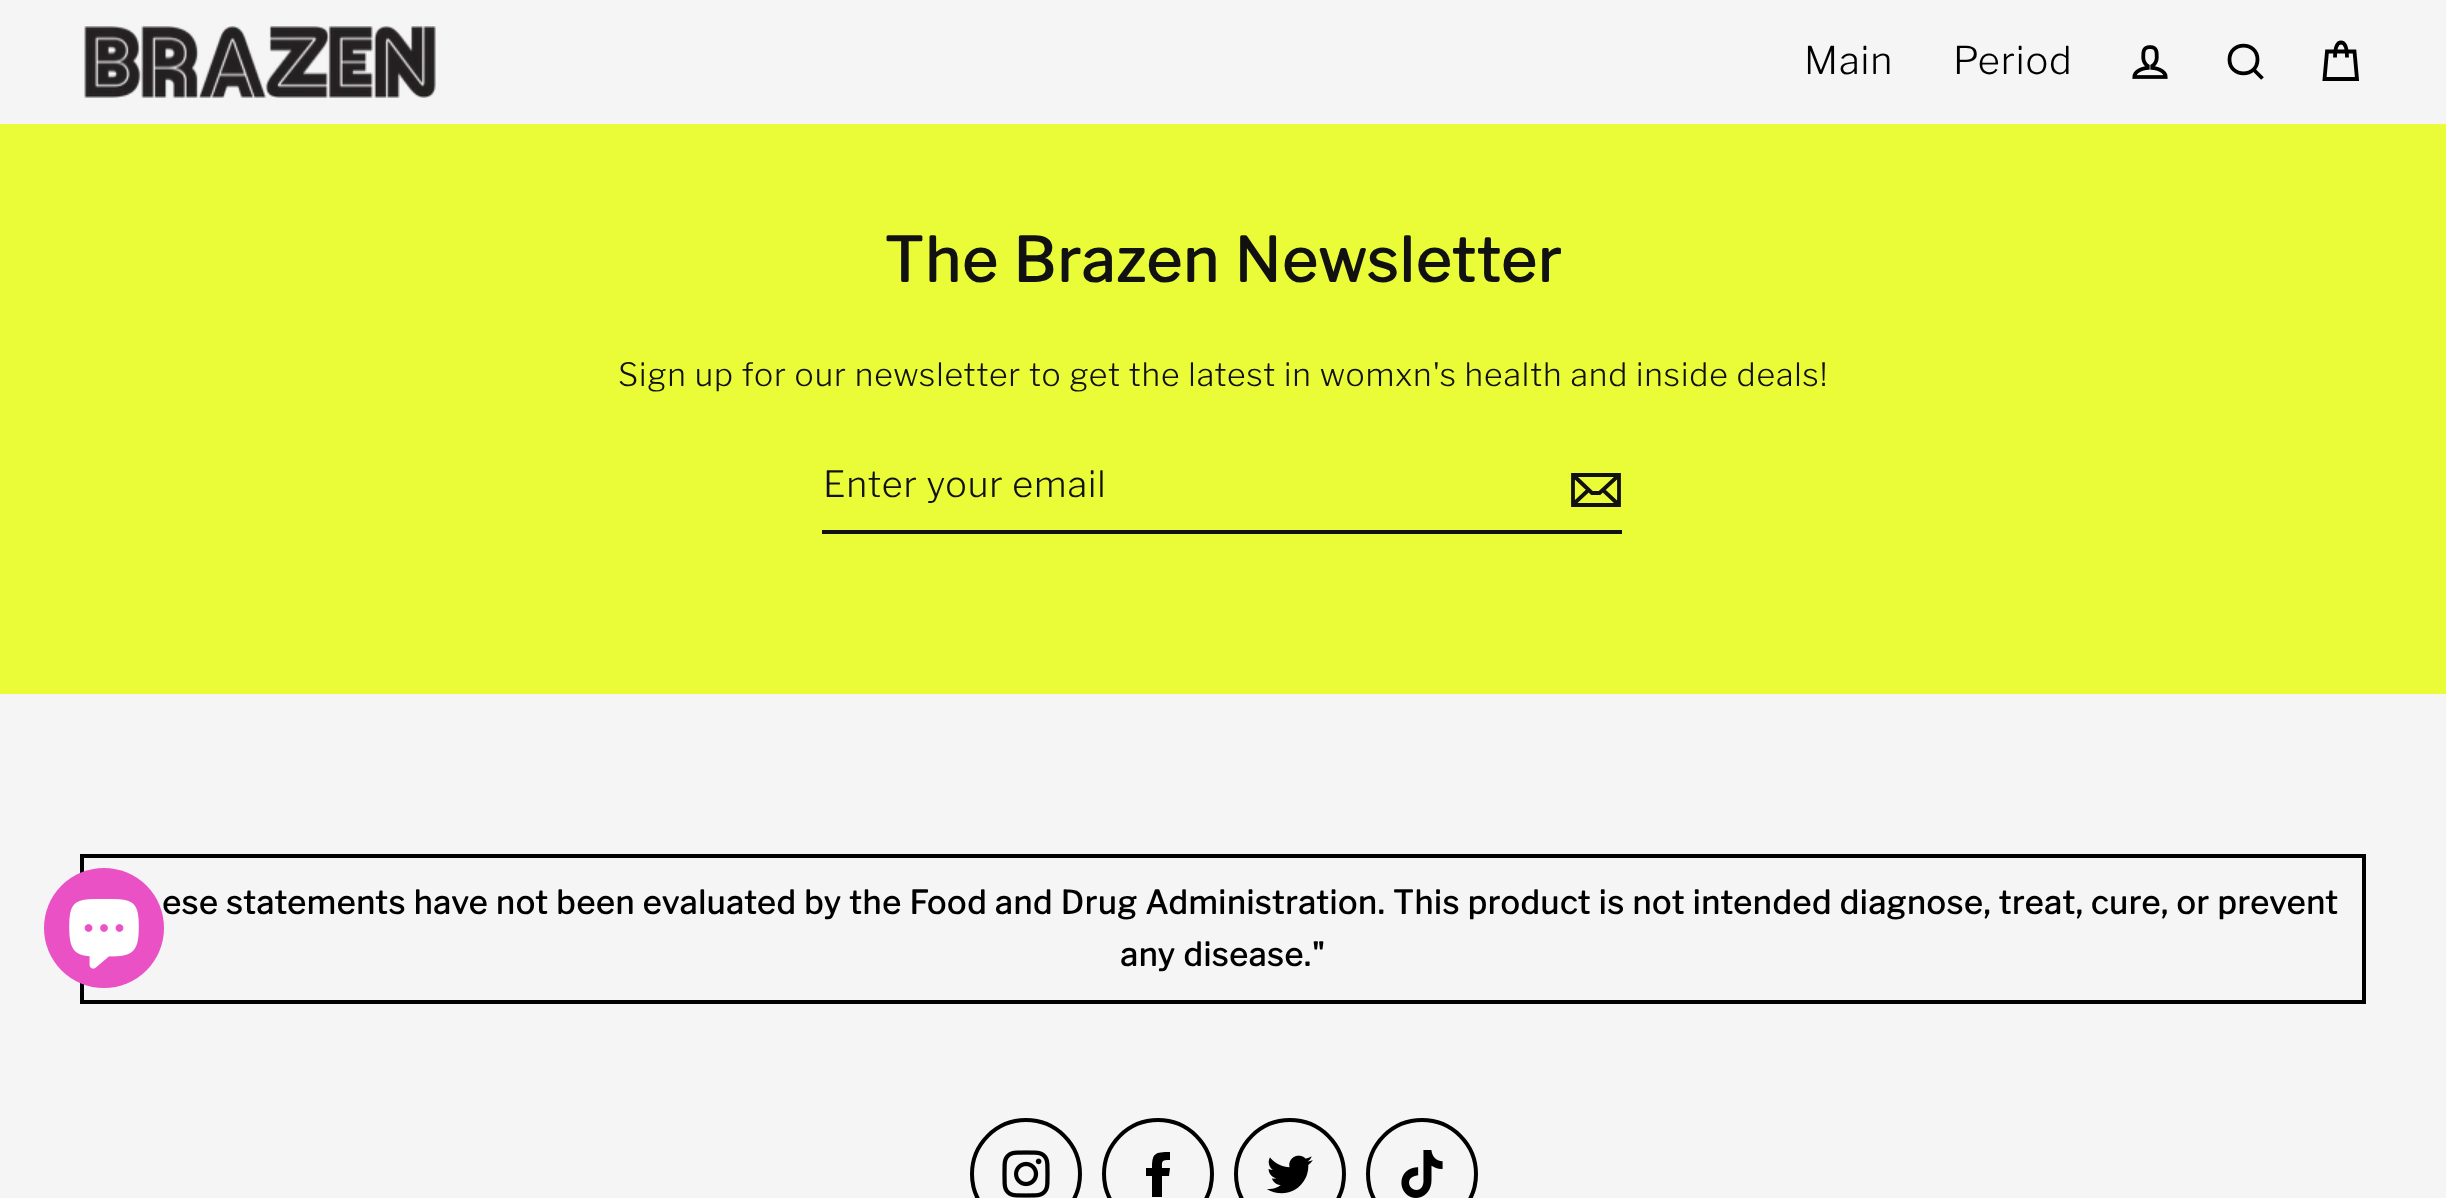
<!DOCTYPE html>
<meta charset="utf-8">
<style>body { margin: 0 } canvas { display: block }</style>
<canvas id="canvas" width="2446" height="1198"></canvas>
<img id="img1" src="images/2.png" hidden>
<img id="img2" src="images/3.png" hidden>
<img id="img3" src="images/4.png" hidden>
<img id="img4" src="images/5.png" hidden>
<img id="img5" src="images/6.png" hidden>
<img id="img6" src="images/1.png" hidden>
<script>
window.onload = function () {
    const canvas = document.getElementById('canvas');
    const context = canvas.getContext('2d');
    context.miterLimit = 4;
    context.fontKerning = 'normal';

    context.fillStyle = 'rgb(245, 245, 245)';
    context.fillRect(0, 0, 2446, 1198);
    context.drawImage(document.getElementById('img1'), 84, 26, 352, 72);
    context.drawImage(document.getElementById('img2'), 2132, 45, 36, 34);
    context.beginPath();
    context.moveTo(2257.5, 59.5);
    context.bezierCurveTo(2257.5, 78, 2229.5, 78, 2229.5, 59.5);
    context.bezierCurveTo(2229.5, 41, 2257.5, 41, 2257.5, 59.5);
    context.closePath();
    context.moveTo(2262.5, 78.5);
    context.lineTo(2253.5, 69.5);
    context.strokeStyle = 'rgb(0, 0, 0)';
    context.lineWidth = 3.8;
    context.stroke();
    context.beginPath();
    context.moveTo(2335, 57.5);
    context.bezierCurveTo(2335, 45.5, 2337.5, 42.5, 2341, 42.5);
    context.bezierCurveTo(2344, 42.5, 2347, 45.5, 2347, 57.5);
    context.moveTo(2327, 51.5);
    context.lineTo(2354.5, 51.5);
    context.lineTo(2357, 79);
    context.lineTo(2324.5, 79);
    context.closePath();
    context.stroke();
    context.fillStyle = 'rgb(234, 252, 56)';
    context.fillRect(0, 124, 2446, 570);
    context.fillStyle = 'rgb(17, 17, 17)';
    context.fillRect(822, 530, 800, 4);
    context.beginPath();
    context.moveTo(1619, 505);
    context.lineTo(1573, 505);
    context.lineTo(1573, 475);
    context.lineTo(1619, 475);
    context.closePath();
    context.moveTo(1573, 475);
    context.lineTo(1592, 493);
    context.lineTo(1599.5, 493);
    context.lineTo(1619, 475);
    context.moveTo(1588.5, 490);
    context.lineTo(1573, 504.5);
    context.moveTo(1619, 505);
    context.lineTo(1603, 490);
    context.strokeStyle = 'rgb(17, 17, 17)';
    context.stroke();
    context.strokeStyle = 'rgb(0, 0, 0)';
    context.lineWidth = 4;
    context.strokeRect(82, 856, 2282, 146);
    context.beginPath();
    context.arc(1026, 1174, 54, 0, 2 * Math.PI);
    context.stroke();
    context.drawImage(document.getElementById('img3'), 1002, 1150, 48, 48);
    context.beginPath();
    context.arc(1158, 1174, 54, 0, 2 * Math.PI);
    context.stroke();
    context.fillStyle = 'rgb(0, 0, 0)';
    context.beginPath();
    context.moveTo(1162, 1197);
    context.lineTo(1162, 1176);
    context.lineTo(1169, 1176);
    context.lineTo(1170, 1168);
    context.lineTo(1162, 1168);
    context.bezierCurveTo(1162, 1161, 1161, 1160, 1170, 1160);
    context.lineTo(1170, 1152);
    context.bezierCurveTo(1155, 1152, 1152, 1153, 1152, 1168);
    context.lineTo(1146, 1168);
    context.lineTo(1146, 1176);
    context.lineTo(1152, 1176);
    context.lineTo(1152, 1197);
    context.closePath();
    context.fill();
    context.beginPath();
    context.arc(1290, 1174, 54, 0, 2 * Math.PI);
    context.stroke();
    context.drawImage(document.getElementById('img4'), 1267, 1155, 46, 39);
    context.beginPath();
    context.arc(1422, 1174, 54, 0, 2 * Math.PI);
    context.stroke();
    context.drawImage(document.getElementById('img5'), 1401, 1150, 42, 48);
    context.letterSpacing = '0.9px';
    context.font = '300 38px Libre Franklin';
    context.fillText('Main', 1804, 74);
    context.fillText('Period', 1953, 74);
    context.letterSpacing = '1.5px';
    context.font = 'bold 60.75px Libre Franklin';
    context.fillStyle = 'rgb(17, 17, 17)';
    context.fillText('The Brazen Newsletter', 884, 282);
    context.letterSpacing = '0.9px';
    context.font = '300 32px Libre Franklin';
    context.fillText('Sign up for our newsletter to get the latest in womxn\'s health and inside deals!', 618, 386);
    context.font = '300 36px Libre Franklin';
    context.fillText('Enter your email', 823, 497);
    context.font = 'bold 32px Libre Franklin';
    context.fillStyle = 'rgb(0, 0, 0)';
    context.fillText('ese statements have not been evaluated by the Food and Drug Administration. This product is not intended diagnose, treat, cure, or prevent', 162, 914);
    context.fillStyle = 'rgb(233, 81, 197)';
    context.beginPath();
    context.arc(104, 928, 60, 0, 2 * Math.PI);
    context.fill();
    context.drawImage(document.getElementById('img6'), 69, 899, 70, 70);
    context.fillStyle = 'rgb(0, 0, 0)';
    context.fillText('any disease."', 1120, 966);
};
</script>
